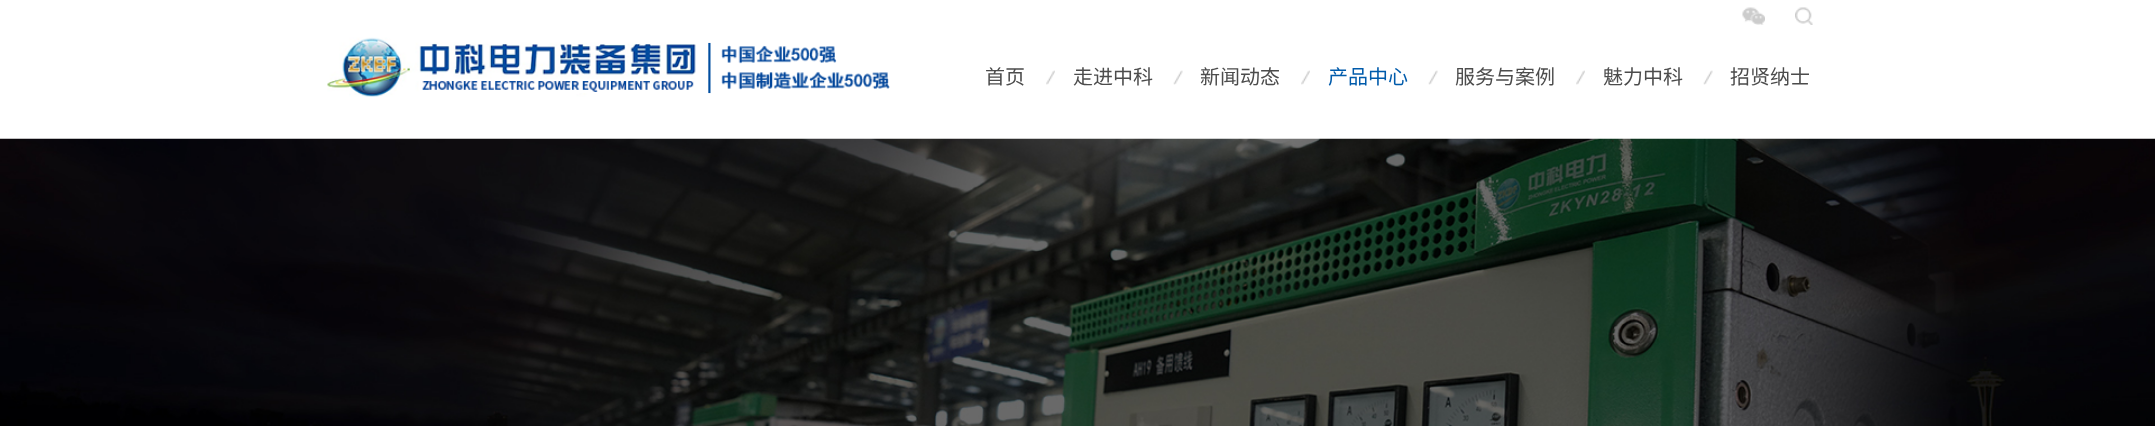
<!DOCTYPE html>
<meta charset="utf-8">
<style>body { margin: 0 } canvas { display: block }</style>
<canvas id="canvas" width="2155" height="426"></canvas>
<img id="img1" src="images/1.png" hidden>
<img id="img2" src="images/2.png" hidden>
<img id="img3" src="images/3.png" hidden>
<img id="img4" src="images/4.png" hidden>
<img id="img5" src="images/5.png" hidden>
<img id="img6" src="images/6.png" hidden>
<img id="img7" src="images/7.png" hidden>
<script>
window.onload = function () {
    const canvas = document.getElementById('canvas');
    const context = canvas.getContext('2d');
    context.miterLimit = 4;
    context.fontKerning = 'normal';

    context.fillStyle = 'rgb(255, 255, 255)';
    context.fillRect(0, 0, 2155, 426);
    context.drawImage(document.getElementById('img1'), 1742, 7, 23, 18);
    context.drawImage(document.getElementById('img2'), 1795, 7, 18, 18);
    context.drawImage(document.getElementById('img3'), 327, 37, 563, 60);
    context.drawImage(document.getElementById('img4'), 1046, 70, 9, 15);
    context.drawImage(document.getElementById('img5'), 1173, 70, 10, 15);
    context.drawImage(document.getElementById('img4'), 1301, 70, 9, 15);
    context.drawImage(document.getElementById('img5'), 1428, 70, 10, 15);
    context.drawImage(document.getElementById('img4'), 1576, 70, 9, 15);
    context.drawImage(document.getElementById('img6'), 1703, 70, 10, 15);
    context.drawImage(document.getElementById('img7'), 0, 138, 2155, 288);
    context.font = '20px Noto Sans CJK SC';
    context.fillStyle = 'rgb(76, 76, 76)';
    context.fillText('首页', 985, 84);
    context.fillText('走进中科', 1073, 84);
    context.fillText('新闻动态', 1200, 84);
    context.fillStyle = 'rgb(0, 91, 171)';
    context.fillText('产品中心', 1328, 84);
    context.fillStyle = 'rgb(76, 76, 76)';
    context.fillText('服务与案例', 1455, 84);
    context.fillText('魅力中科', 1603, 84);
    context.fillText('招贤纳士', 1730, 84);
};
</script>
